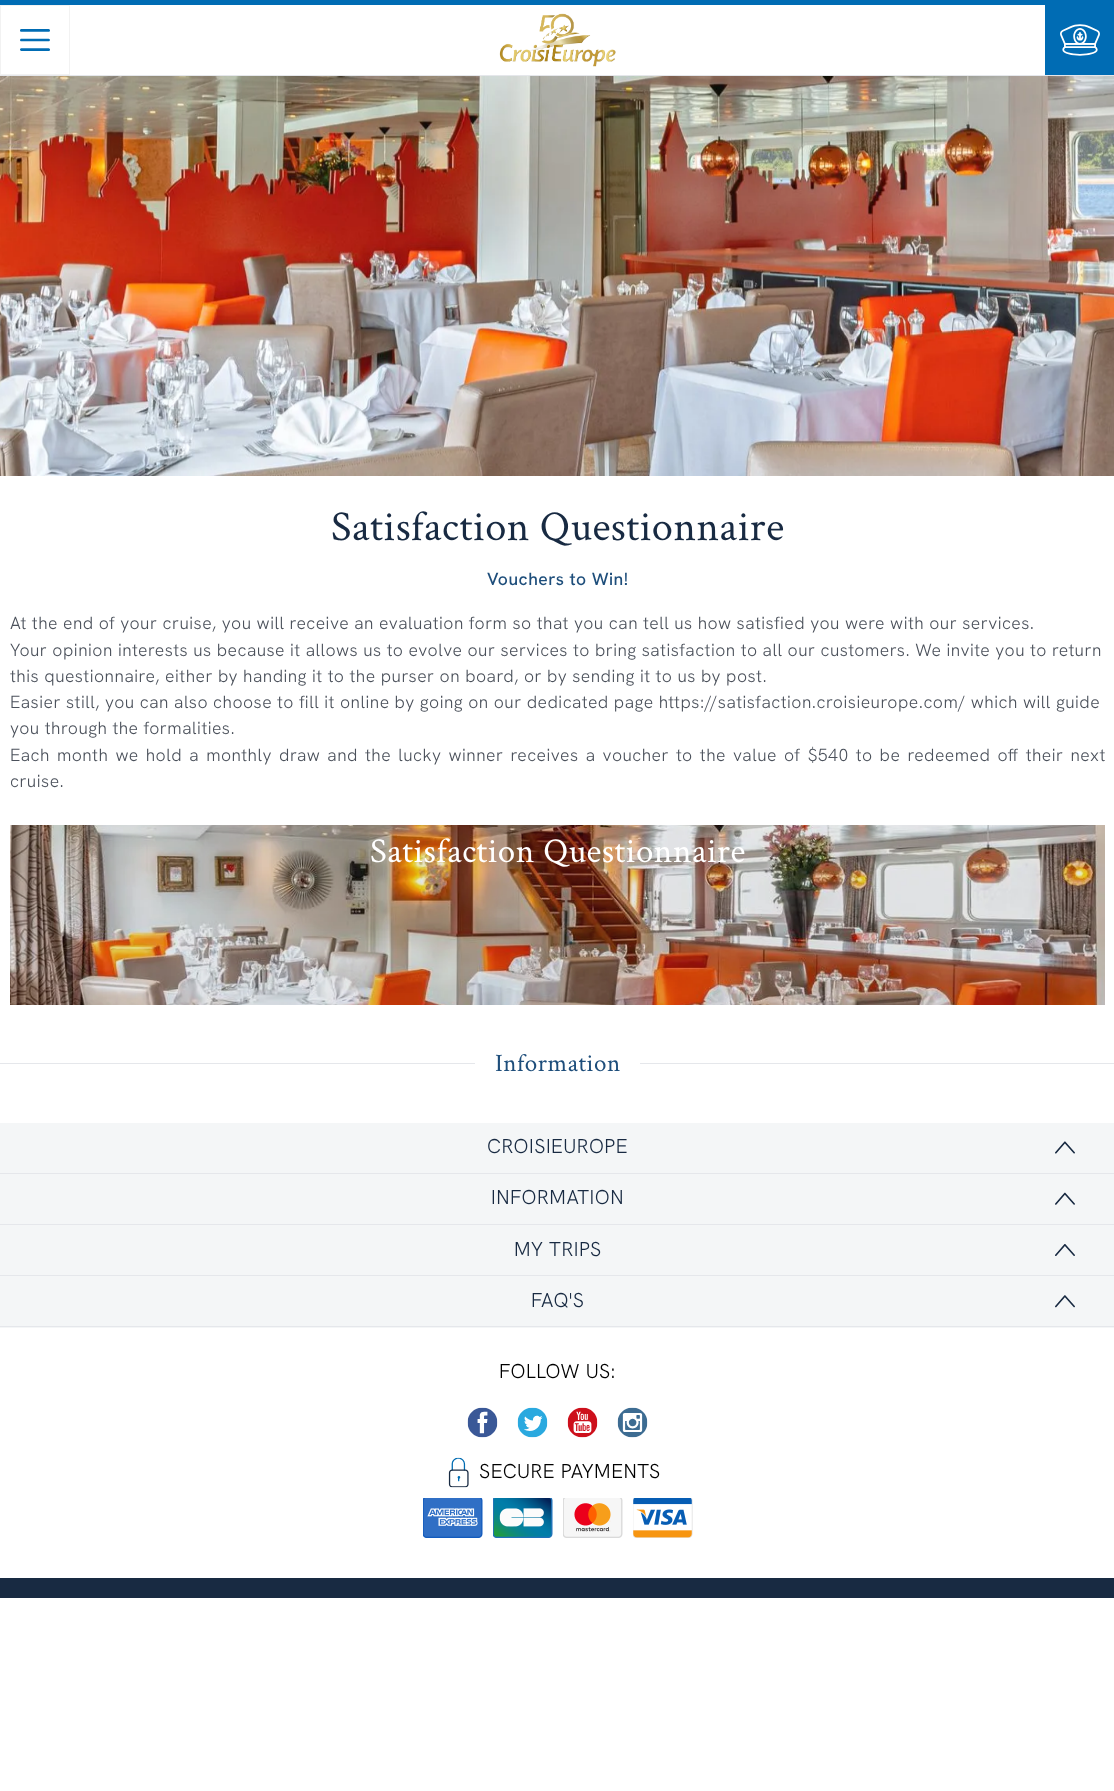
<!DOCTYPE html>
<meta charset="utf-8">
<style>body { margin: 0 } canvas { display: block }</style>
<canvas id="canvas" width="1114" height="1791"></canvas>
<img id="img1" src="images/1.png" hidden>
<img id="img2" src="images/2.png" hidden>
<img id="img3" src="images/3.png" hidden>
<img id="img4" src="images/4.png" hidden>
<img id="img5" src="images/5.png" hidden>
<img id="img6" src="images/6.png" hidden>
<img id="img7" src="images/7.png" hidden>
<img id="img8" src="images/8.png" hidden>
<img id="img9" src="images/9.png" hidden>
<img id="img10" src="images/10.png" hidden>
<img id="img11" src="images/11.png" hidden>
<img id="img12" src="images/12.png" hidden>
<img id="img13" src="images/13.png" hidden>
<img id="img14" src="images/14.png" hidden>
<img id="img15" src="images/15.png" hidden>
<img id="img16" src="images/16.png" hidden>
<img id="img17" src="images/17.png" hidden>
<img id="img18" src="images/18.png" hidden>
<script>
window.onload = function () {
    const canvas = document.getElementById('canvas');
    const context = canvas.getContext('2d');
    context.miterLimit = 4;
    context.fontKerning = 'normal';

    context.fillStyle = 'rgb(255, 255, 255)';
    context.fillRect(0, 0, 1114, 1791);
    context.fillStyle = 'rgb(0, 108, 180)';
    context.fillRect(0, 0, 1114, 5);
    context.fillStyle = 'rgb(229, 231, 235)';
    context.fillRect(0, 75, 1114, 1);
    context.strokeStyle = 'rgb(242, 242, 242)';
    context.strokeRect(0.5, 5.5, 69, 69);
    context.drawImage(document.getElementById('img1'), 20, 29, 30, 22);
    context.drawImage(document.getElementById('img2'), 499, 13, 117, 54);
    context.fillStyle = 'rgb(0, 108, 180)';
    context.fillRect(1045, 5, 69, 70);
    context.drawImage(document.getElementById('img3'), 1060, 24, 40, 32);
    context.drawImage(document.getElementById('img4'), 0, 76, 1114, 400);
    context.drawImage(document.getElementById('img5'), 10, 825, 1095, 180);
    context.fillStyle = 'rgb(229, 231, 235)';
    context.fillRect(0, 1063, 475, 1);
    context.fillRect(640, 1063, 474, 1);
    context.fillStyle = 'rgb(244, 246, 247)';
    context.fillRect(0, 1123, 1114, 205);
    context.fillStyle = 'rgb(229, 231, 235)';
    context.fillRect(0, 1173, 1114, 1);
    context.drawImage(document.getElementById('img6'), 1055, 1141, 20, 13);
    context.fillRect(0, 1224, 1114, 1);
    context.drawImage(document.getElementById('img7'), 1055, 1192, 20, 13);
    context.fillRect(0, 1275, 1114, 1);
    context.drawImage(document.getElementById('img8'), 1055, 1244, 20, 12);
    context.fillRect(0, 1326, 1114, 1);
    context.drawImage(document.getElementById('img9'), 1055, 1295, 20, 13);
    context.drawImage(document.getElementById('img10'), 467, 1407, 31, 31);
    context.drawImage(document.getElementById('img11'), 517, 1407, 31, 31);
    context.drawImage(document.getElementById('img12'), 567, 1407, 31, 31);
    context.drawImage(document.getElementById('img13'), 617, 1407, 31, 31);
    context.drawImage(document.getElementById('img14'), 448, 1457, 21, 31);
    context.drawImage(document.getElementById('img15'), 423, 1498, 60, 40);
    context.drawImage(document.getElementById('img16'), 493, 1498, 60, 40);
    context.drawImage(document.getElementById('img17'), 563, 1498, 60, 40);
    context.drawImage(document.getElementById('img18'), 633, 1498, 60, 40);
    context.fillStyle = 'rgb(24, 42, 66)';
    context.fillRect(0, 1578, 1114, 20);
    context.letterSpacing = '0.5px';
    context.font = '42.5px Crimson Text';
    context.fillText('Satisfaction Questionnaire', 331, 540);
    context.font = '500 17.5px Hanken Grotesk';
    context.fillStyle = 'rgb(30, 78, 123)';
    context.fillText('Vouchers to Win!', 487, 585);
    context.font = '300 17.5px Hanken Grotesk';
    context.fillStyle = 'rgb(75, 81, 91)';
    context.fillText('At the end of your cruise, you will receive an evaluation form so that you can tell us how satisfied you were with our services.', 10, 629);
    context.fillText('Your opinion interests us because it allows us to evolve our services to bring satisfaction to all our customers. We invite you to return', 10, 656);
    context.fillText('this questionnaire, either by handing it to the purser on board, or by sending it to us by post.', 10, 682);
    context.fillText('Easier still, you can also choose to fill it online by going on our dedicated page https://satisfaction.croisieurope.com/ which will guide', 10, 708);
    context.fillText('you through the formalities.', 10, 734);
    context.wordSpacing = '2px';
    context.fillText('Each month we hold a monthly draw and the lucky winner receives a voucher to the value of $540 to be redeemed off their next', 10, 761);
    context.wordSpacing = '0px';
    context.fillText('cruise.', 10, 787);
    context.font = '35px Crimson Text';
    context.fillStyle = 'rgb(255, 255, 255)';
    context.fillText('Satisfaction Questionnaire', 370, 862);
    context.font = '25px Crimson Text';
    context.fillStyle = 'rgb(30, 78, 123)';
    context.fillText('Information', 495, 1071);
    context.font = '300 20px Hanken Grotesk';
    context.fillStyle = 'rgb(24, 42, 66)';
    context.fillText('CROISIEUROPE', 487, 1153);
    context.fillText('INFORMATION', 491, 1204);
    context.fillText('MY TRIPS', 514, 1256);
    context.fillText('FAQ\'S', 531, 1307);
    context.fillStyle = 'rgb(0, 0, 0)';
    context.fillText('FOLLOW US:', 499, 1378);
    context.fillText('SECURE PAYMENTS', 479, 1478);
};
</script>
